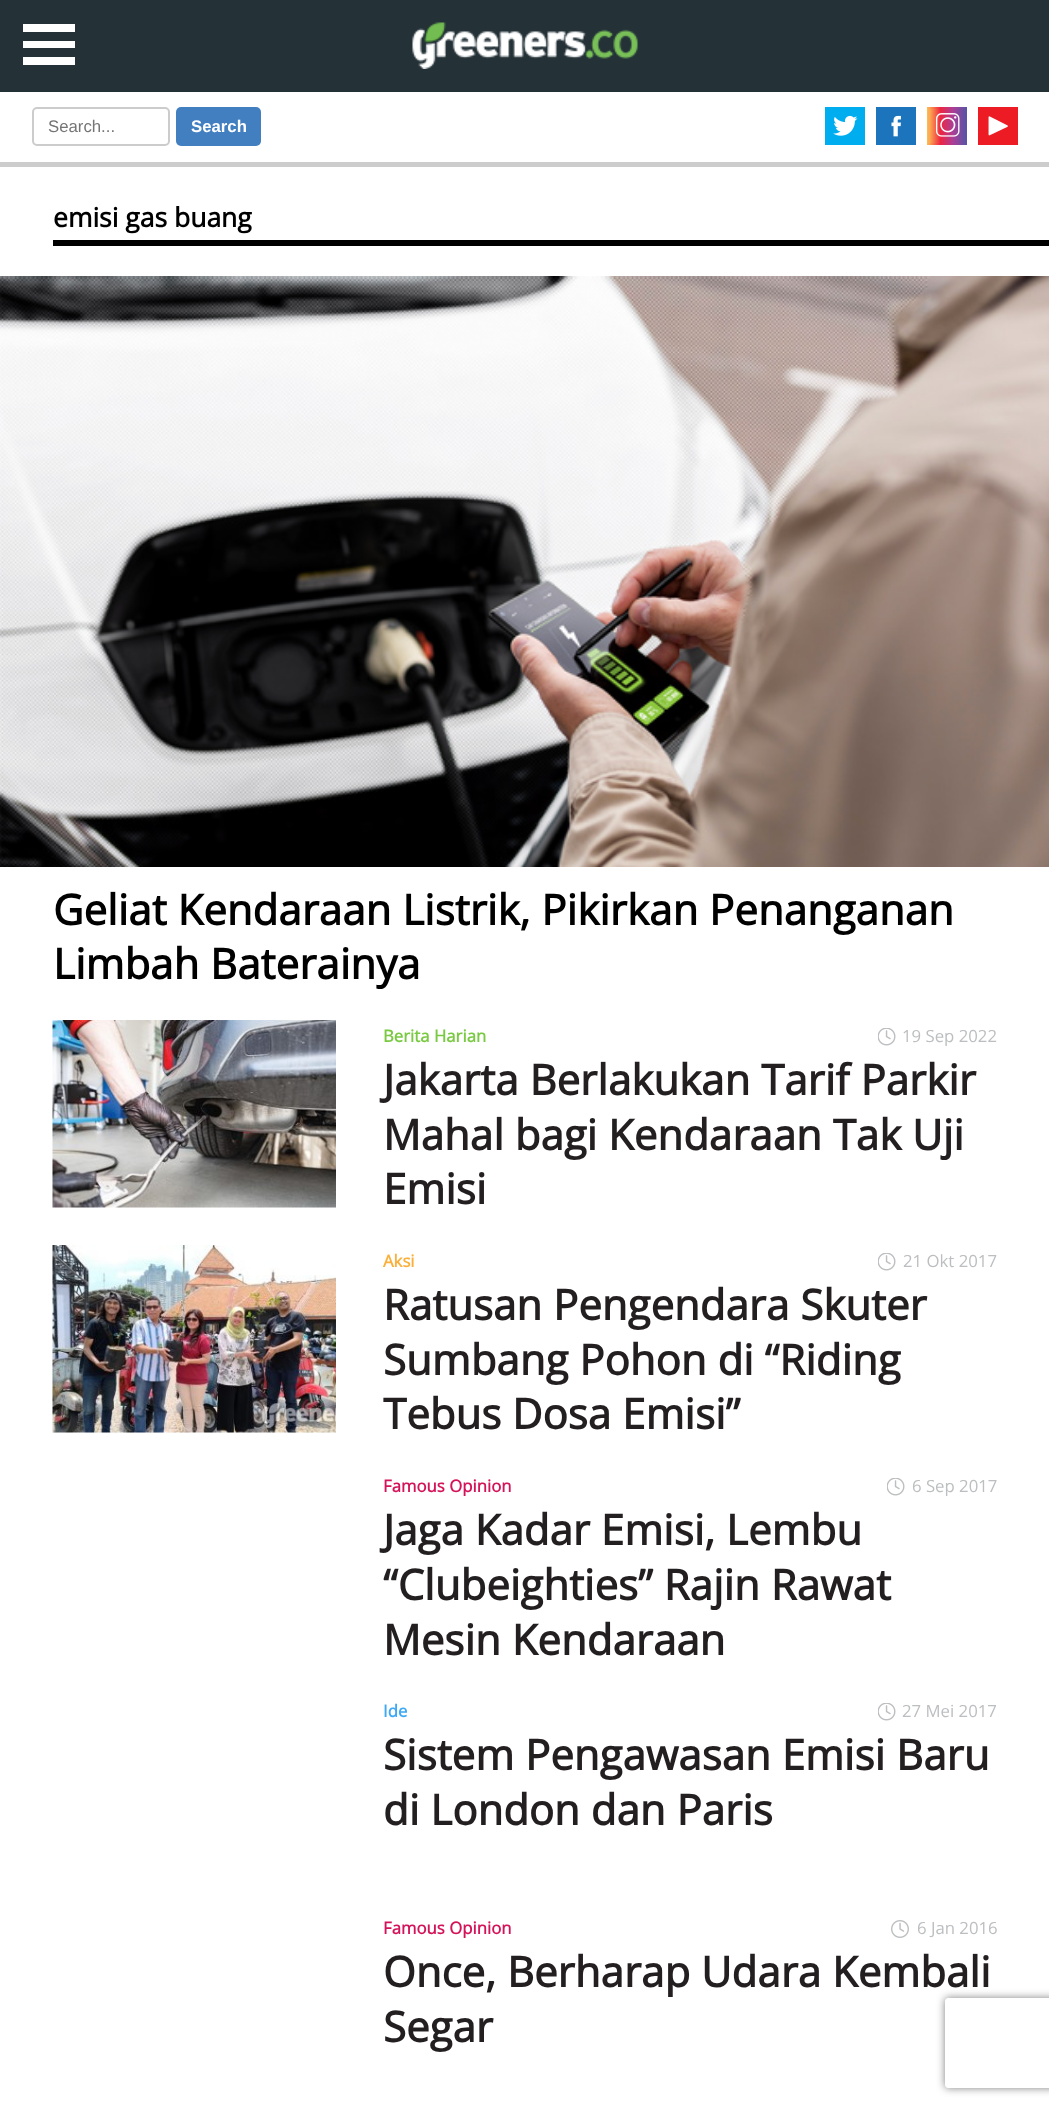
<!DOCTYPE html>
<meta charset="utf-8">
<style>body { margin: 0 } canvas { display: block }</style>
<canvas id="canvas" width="1049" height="2108"></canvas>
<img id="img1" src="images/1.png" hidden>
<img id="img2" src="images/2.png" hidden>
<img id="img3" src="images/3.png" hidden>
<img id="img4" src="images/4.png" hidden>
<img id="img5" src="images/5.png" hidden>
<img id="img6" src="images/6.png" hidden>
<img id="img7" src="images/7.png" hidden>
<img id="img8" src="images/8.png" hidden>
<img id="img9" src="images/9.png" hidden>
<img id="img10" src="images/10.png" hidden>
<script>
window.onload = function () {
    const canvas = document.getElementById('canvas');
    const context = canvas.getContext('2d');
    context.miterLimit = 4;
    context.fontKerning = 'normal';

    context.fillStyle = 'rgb(255, 255, 255)';
    context.fillRect(0, 0, 1049, 2108);
    context.fillStyle = 'rgb(36, 50, 56)';
    context.fillRect(0, 0, 1049, 92);
    context.fillStyle = 'rgb(255, 255, 255)';
    context.fillRect(23, 24, 52, 8);
    context.fillRect(23, 41, 52, 7);
    context.fillRect(23, 57, 52, 8);
    context.drawImage(document.getElementById('img1'), 412, 22, 226, 47);
    context.fillStyle = 'rgb(204, 204, 204)';
    context.fillRect(0, 162, 1049, 5);
    context.beginPath();
    context.roundRect(33, 108, 136, 37, 4);
    context.strokeStyle = 'rgb(204, 204, 204)';
    context.lineWidth = 2;
    context.stroke();
    context.fillStyle = 'rgb(66, 127, 193)';
    context.beginPath();
    context.roundRect(176, 107, 85, 39, 5);
    context.fill();
    context.drawImage(document.getElementById('img2'), 825, 107, 40, 38);
    context.drawImage(document.getElementById('img3'), 876, 107, 40, 38);
    context.drawImage(document.getElementById('img4'), 927, 107, 40, 38);
    context.drawImage(document.getElementById('img5'), 978, 107, 40, 38);
    context.fillStyle = 'rgb(0, 0, 0)';
    context.fillRect(53, 240, 996, 6);
    context.drawImage(document.getElementById('img6'), 0, 276, 1049, 591);
    context.drawImage(document.getElementById('img7'), 52, 1020, 284, 188);
    context.drawImage(document.getElementById('img8'), 878, 1028, 18, 18);
    context.drawImage(document.getElementById('img9'), 52, 1245, 284, 188);
    context.drawImage(document.getElementById('img8'), 878, 1253, 18, 18);
    context.drawImage(document.getElementById('img8'), 887, 1478, 18, 18);
    context.drawImage(document.getElementById('img8'), 878, 1703, 18, 18);
    context.drawImage(document.getElementById('img10'), 891, 1920, 18, 18);
    context.save();
    context.beginPath();
    context.moveTo(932, 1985);
    context.lineTo(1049, 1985);
    context.lineTo(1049, 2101);
    context.lineTo(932, 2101);
    context.closePath();
    context.moveTo(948, 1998);
    context.lineTo(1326, 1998);
    context.bezierCurveTo(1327.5, 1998, 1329, 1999.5, 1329, 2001);
    context.lineTo(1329, 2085);
    context.bezierCurveTo(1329, 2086.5, 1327.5, 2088, 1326, 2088);
    context.lineTo(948, 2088);
    context.bezierCurveTo(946.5, 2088, 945, 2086.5, 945, 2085);
    context.lineTo(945, 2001);
    context.bezierCurveTo(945, 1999.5, 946.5, 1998, 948, 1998);
    context.closePath();
    context.clip('evenodd');
    context.fillStyle = 'rgb(128, 128, 128)';
    context.filter = 'blur(4px)';
    context.beginPath();
    context.roundRect(945, 1998, 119, 90, 3);
    context.fill();
    context.filter = 'none';
    context.restore();
    context.font = '16.75px Liberation Sans';
    context.fillStyle = 'rgb(117, 117, 117)';
    context.fillText('Search...', 48, 132);
    context.font = 'bold 16.75px Liberation Sans';
    context.fillStyle = 'rgb(255, 255, 255)';
    context.fillText('Search', 191, 132);
    context.font = 'bold 26.5px Open Sans';
    context.fillStyle = 'rgb(0, 0, 0)';
    context.fillText('emisi gas buang', 53, 227);
    context.font = 'bold 42px Open Sans';
    context.fillText('Geliat Kendaraan Listrik, Pikirkan Penanganan', 53, 925);
    context.fillText('Limbah Baterainya', 53, 979);
    context.font = 'bold 16.75px Open Sans';
    context.fillStyle = 'rgb(122, 201, 67)';
    context.fillText('Berita Harian', 383, 1042);
    context.font = '16.75px Open Sans';
    context.fillStyle = 'rgb(188, 190, 192)';
    context.fillText('19 Sep 2022', 902, 1042);
    context.font = 'bold 42px Open Sans';
    context.fillStyle = 'rgb(35, 31, 32)';
    context.fillText('Jakarta Berlakukan Tarif Parkir', 383, 1095);
    context.fillText('Mahal bagi Kendaraan Tak Uji', 383, 1150);
    context.fillText('Emisi', 383, 1204);
    context.font = 'bold 16.75px Open Sans';
    context.fillStyle = 'rgb(251, 176, 59)';
    context.fillText('Aksi', 383, 1267);
    context.font = '16.75px Open Sans';
    context.fillStyle = 'rgb(188, 190, 192)';
    context.fillText('21 Okt 2017', 903, 1267);
    context.font = 'bold 42px Open Sans';
    context.fillStyle = 'rgb(35, 31, 32)';
    context.fillText('Ratusan Pengendara Skuter', 383, 1320);
    context.fillText('Sumbang Pohon di “Riding', 383, 1375);
    context.fillText('Tebus Dosa Emisi”', 383, 1429);
    context.font = 'bold 16.75px Open Sans';
    context.fillStyle = 'rgb(212, 20, 90)';
    context.fillText('Famous Opinion', 383, 1492);
    context.font = '16.75px Open Sans';
    context.fillStyle = 'rgb(188, 190, 192)';
    context.fillText('6 Sep 2017', 912, 1492);
    context.font = 'bold 42px Open Sans';
    context.fillStyle = 'rgb(35, 31, 32)';
    context.fillText('Jaga Kadar Emisi, Lembu', 383, 1545);
    context.fillText('“Clubeighties” Rajin Rawat', 383, 1600);
    context.fillText('Mesin Kendaraan', 383, 1655);
    context.font = 'bold 16.75px Open Sans';
    context.fillStyle = 'rgb(63, 169, 245)';
    context.fillText('Ide', 383, 1717);
    context.font = '16.75px Open Sans';
    context.fillStyle = 'rgb(188, 190, 192)';
    context.fillText('27 Mei 2017', 902, 1717);
    context.font = 'bold 42px Open Sans';
    context.fillStyle = 'rgb(35, 31, 32)';
    context.fillText('Sistem Pengawasan Emisi Baru', 383, 1770);
    context.fillText('di London dan Paris', 383, 1825);
    context.font = 'bold 16.75px Open Sans';
    context.fillStyle = 'rgb(212, 20, 90)';
    context.fillText('Famous Opinion', 383, 1934);
    context.font = '16.75px Open Sans';
    context.fillStyle = 'rgb(188, 190, 192)';
    context.fillText('6 Jan 2016', 917, 1934);
    context.font = 'bold 42px Open Sans';
    context.fillStyle = 'rgb(35, 31, 32)';
    context.fillText('Once, Berharap Udara Kembali', 383, 1987);
    context.fillText('Segar', 383, 2042);
};
</script>
